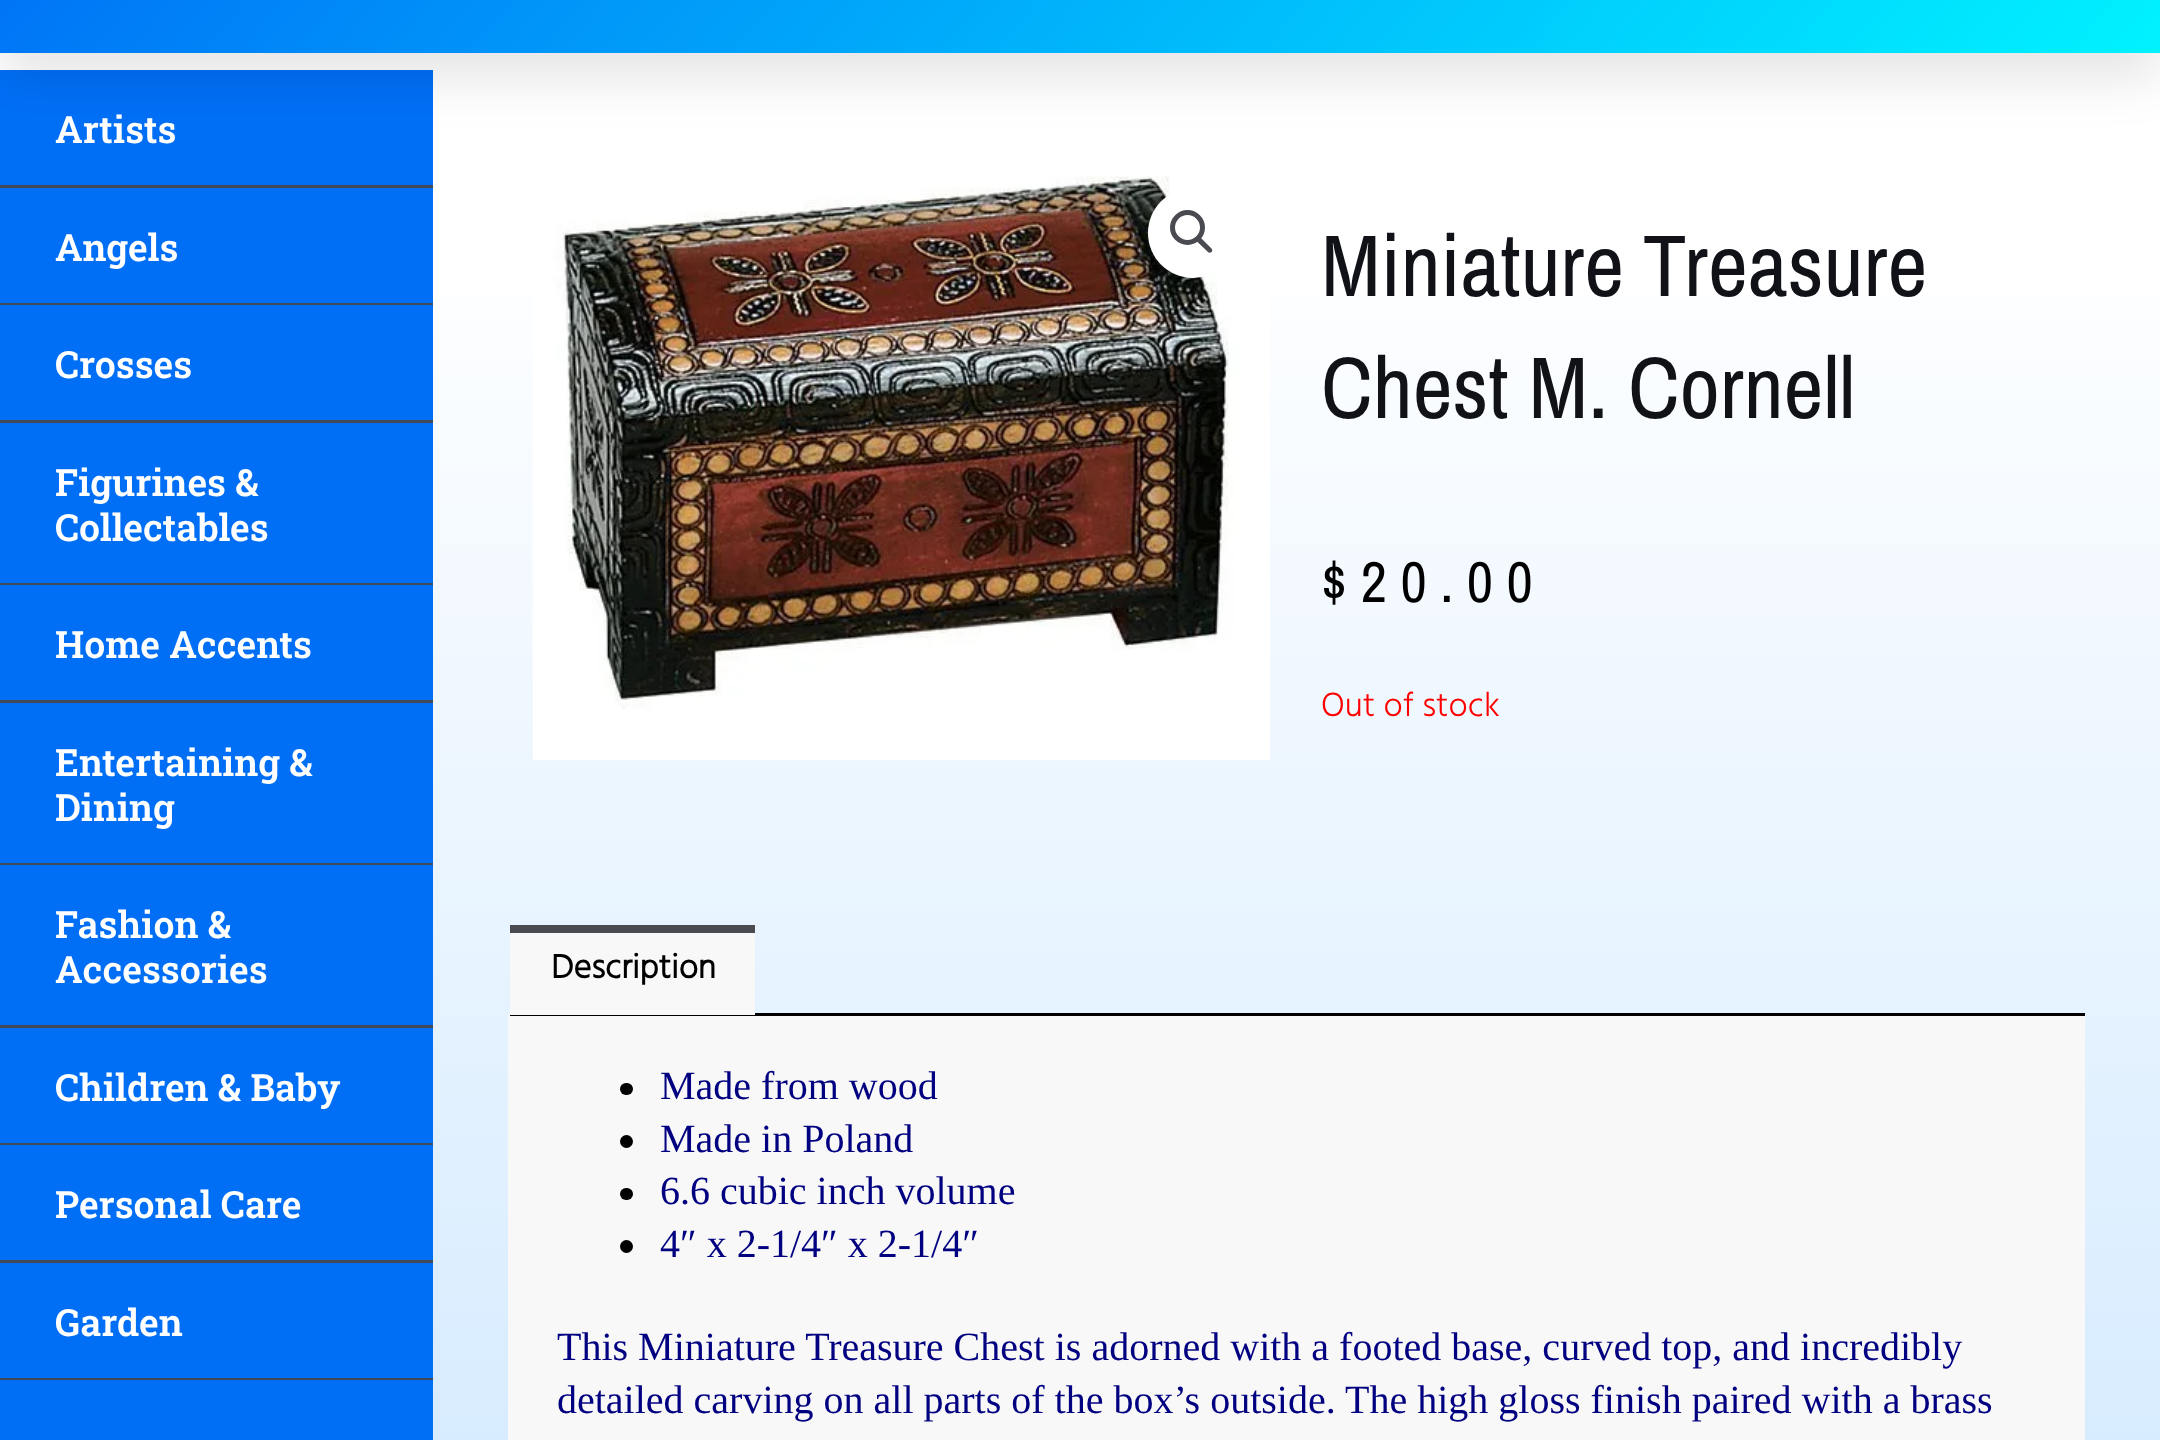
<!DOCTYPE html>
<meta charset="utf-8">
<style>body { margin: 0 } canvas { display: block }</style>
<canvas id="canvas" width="2160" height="1440"></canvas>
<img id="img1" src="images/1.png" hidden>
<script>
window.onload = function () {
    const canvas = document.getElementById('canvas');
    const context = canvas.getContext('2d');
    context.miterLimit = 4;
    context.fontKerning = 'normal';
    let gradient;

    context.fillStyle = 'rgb(255, 255, 255)';
    context.fillRect(0, 0, 2160, 1440);
    gradient = context.createLinearGradient(1080, -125, 1080, 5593);
    gradient.addColorStop(0.06, 'rgb(255, 255, 255)');
    gradient.addColorStop(0.91, 'rgb(97, 179, 255)');
    context.fillStyle = gradient;
    context.fillRect(0, 295, 2160, 1145);
    context.fillStyle = 'rgb(0, 111, 246)';
    context.fillRect(0, 70, 433, 115);
    context.fillStyle = 'rgba(0, 0, 0, 0.1)';
    context.filter = 'blur(25px)';
    context.beginPath();
    context.rect(0, -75, 2160, 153);
    context.fill();
    context.filter = 'none';
    gradient = context.createLinearGradient(403, -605, 1757, 532);
    gradient.addColorStop(0, 'rgb(0, 111, 246)');
    gradient.addColorStop(1, 'rgb(0, 242, 255)');
    context.fillStyle = gradient;
    context.fillRect(0, 0, 2160, 53);
    context.fillStyle = 'rgb(65, 73, 86)';
    context.fillRect(0, 185, 433, 3);
    context.fillStyle = 'rgb(0, 111, 246)';
    context.fillRect(0, 188, 433, 115);
    context.fillStyle = 'rgb(65, 73, 86)';
    context.fillRect(0, 303, 433, 2);
    context.fillStyle = 'rgb(0, 111, 246)';
    context.fillRect(0, 305, 433, 115);
    context.fillStyle = 'rgb(65, 73, 86)';
    context.fillRect(0, 420, 433, 3);
    context.fillStyle = 'rgb(0, 111, 246)';
    context.fillRect(0, 423, 433, 160);
    context.fillStyle = 'rgb(65, 73, 86)';
    context.fillRect(0, 583, 433, 2);
    context.fillStyle = 'rgb(0, 111, 246)';
    context.fillRect(0, 585, 433, 115);
    context.fillStyle = 'rgb(65, 73, 86)';
    context.fillRect(0, 700, 433, 3);
    context.fillStyle = 'rgb(0, 111, 246)';
    context.fillRect(0, 703, 433, 160);
    context.fillStyle = 'rgb(65, 73, 86)';
    context.fillRect(0, 863, 433, 2);
    context.fillStyle = 'rgb(0, 111, 246)';
    context.fillRect(0, 865, 433, 160);
    context.fillStyle = 'rgb(65, 73, 86)';
    context.fillRect(0, 1025, 433, 3);
    context.fillStyle = 'rgb(0, 111, 246)';
    context.fillRect(0, 1028, 433, 115);
    context.fillStyle = 'rgb(65, 73, 86)';
    context.fillRect(0, 1143, 433, 2);
    context.fillStyle = 'rgb(0, 111, 246)';
    context.fillRect(0, 1145, 433, 115);
    context.fillStyle = 'rgb(65, 73, 86)';
    context.fillRect(0, 1260, 433, 3);
    context.fillStyle = 'rgb(0, 111, 246)';
    context.fillRect(0, 1263, 433, 115);
    context.fillStyle = 'rgb(65, 73, 86)';
    context.fillRect(0, 1378, 433, 2);
    context.fillStyle = 'rgb(0, 111, 246)';
    context.fillRect(0, 1380, 433, 60);
    context.drawImage(document.getElementById('img1'), 532, 176, 738, 584);
    context.fillStyle = 'rgb(255, 255, 255)';
    context.beginPath();
    context.arc(1193, 233, 45, 0, 2 * Math.PI);
    context.fill();
    context.beginPath();
    context.arc(1187.5, 227.5, 15, 0, 2 * Math.PI);
    context.strokeStyle = 'rgb(73, 75, 81)';
    context.lineWidth = 5;
    context.stroke();
    context.fillStyle = 'rgb(73, 75, 81)';
    context.beginPath();
    context.moveTo(1197, 238);
    context.bezierCurveTo(1198, 237, 1200, 237, 1201, 238);
    context.lineTo(1211.5, 248.5);
    context.bezierCurveTo(1212.5, 249.5, 1212.5, 251.5, 1211.5, 252);
    context.bezierCurveTo(1210.5, 253, 1209, 253, 1208, 252);
    context.lineTo(1197, 241.5);
    context.bezierCurveTo(1196, 240.5, 1196, 239, 1197, 238);
    context.closePath();
    context.fill();
    context.fillStyle = 'rgb(248, 248, 248)';
    context.beginPath();
    context.roundRect(508, 1013, 1577, 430, 2.5);
    context.fill();
    context.fillStyle = 'rgb(0, 0, 0)';
    context.fillRect(510, 1013, 1575, 3);
    context.fillStyle = 'rgb(248, 248, 248)';
    context.fillRect(510, 933, 245, 82);
    context.fillStyle = 'rgb(73, 75, 81)';
    context.fillRect(510, 925, 245, 8);
    context.fillStyle = 'rgb(0, 0, 0)';
    context.beginPath();
    context.roundRect(620, 1083, 13, 12, 6);
    context.fill();
    context.beginPath();
    context.arc(626.5, 1141.5, 6.5, 0, 2 * Math.PI);
    context.fill();
    context.beginPath();
    context.roundRect(620, 1188, 13, 12, 6);
    context.fill();
    context.beginPath();
    context.arc(626.5, 1246.5, 6.5, 0, 2 * Math.PI);
    context.fill();
    context.font = '600 37.5px Roboto Slab';
    context.fillStyle = 'rgb(255, 255, 255)';
    context.fillText('Artists', 55, 143);
    context.fillText('Angels', 55, 261);
    context.fillText('Crosses', 55, 378);
    context.fillText('Figurines &', 55, 496);
    context.fillText('Collectables', 55, 541);
    context.fillText('Home Accents', 55, 658);
    context.fillText('Entertaining &', 55, 776);
    context.fillText('Dining', 55, 821);
    context.fillText('Fashion &', 55, 938);
    context.fillText('Accessories', 55, 983);
    context.fillText('Children & Baby', 55, 1101);
    context.fillText('Personal Care', 55, 1218);
    context.fillText('Garden', 55, 1336);
    context.font = '87.5px Archivo Narrow';
    context.fillStyle = 'rgb(16, 18, 24)';
    context.fillText('Miniature Treasure', 1321, 296);
    context.fillText('Chest M. Cornell', 1321, 418);
    context.letterSpacing = '13.5px';
    context.font = '57.5px Archivo Narrow';
    context.fillStyle = 'rgb(0, 0, 0)';
    context.fillText('$20.00', 1321, 602);
    context.letterSpacing = '0px';
    context.font = '300 34.25px Hind';
    context.fillStyle = 'rgb(255, 0, 0)';
    context.fillText('Out of stock', 1321, 716);
    context.font = 'bold 34.25px Hind';
    context.fillStyle = 'rgb(0, 0, 0)';
    context.fillText('Description', 551, 978);
    context.font = '40px Liberation Serif';
    context.fillStyle = 'rgb(0, 0, 128)';
    context.fillText('Made from wood', 660, 1099);
    context.fillText('Made in Poland', 660, 1152);
    context.fillText('6.6 cubic inch volume', 660, 1204);
    context.fillText('4″ x 2-1/4″ x 2-1/4″', 660, 1257);
    context.fillText('This Miniature Treasure Chest is adorned with a footed base, curved top, and incredibly', 557, 1360);
    context.fillText('detailed carving on all parts of the box’s outside. The high gloss finish paired with a brass', 557, 1413);
};
</script>
